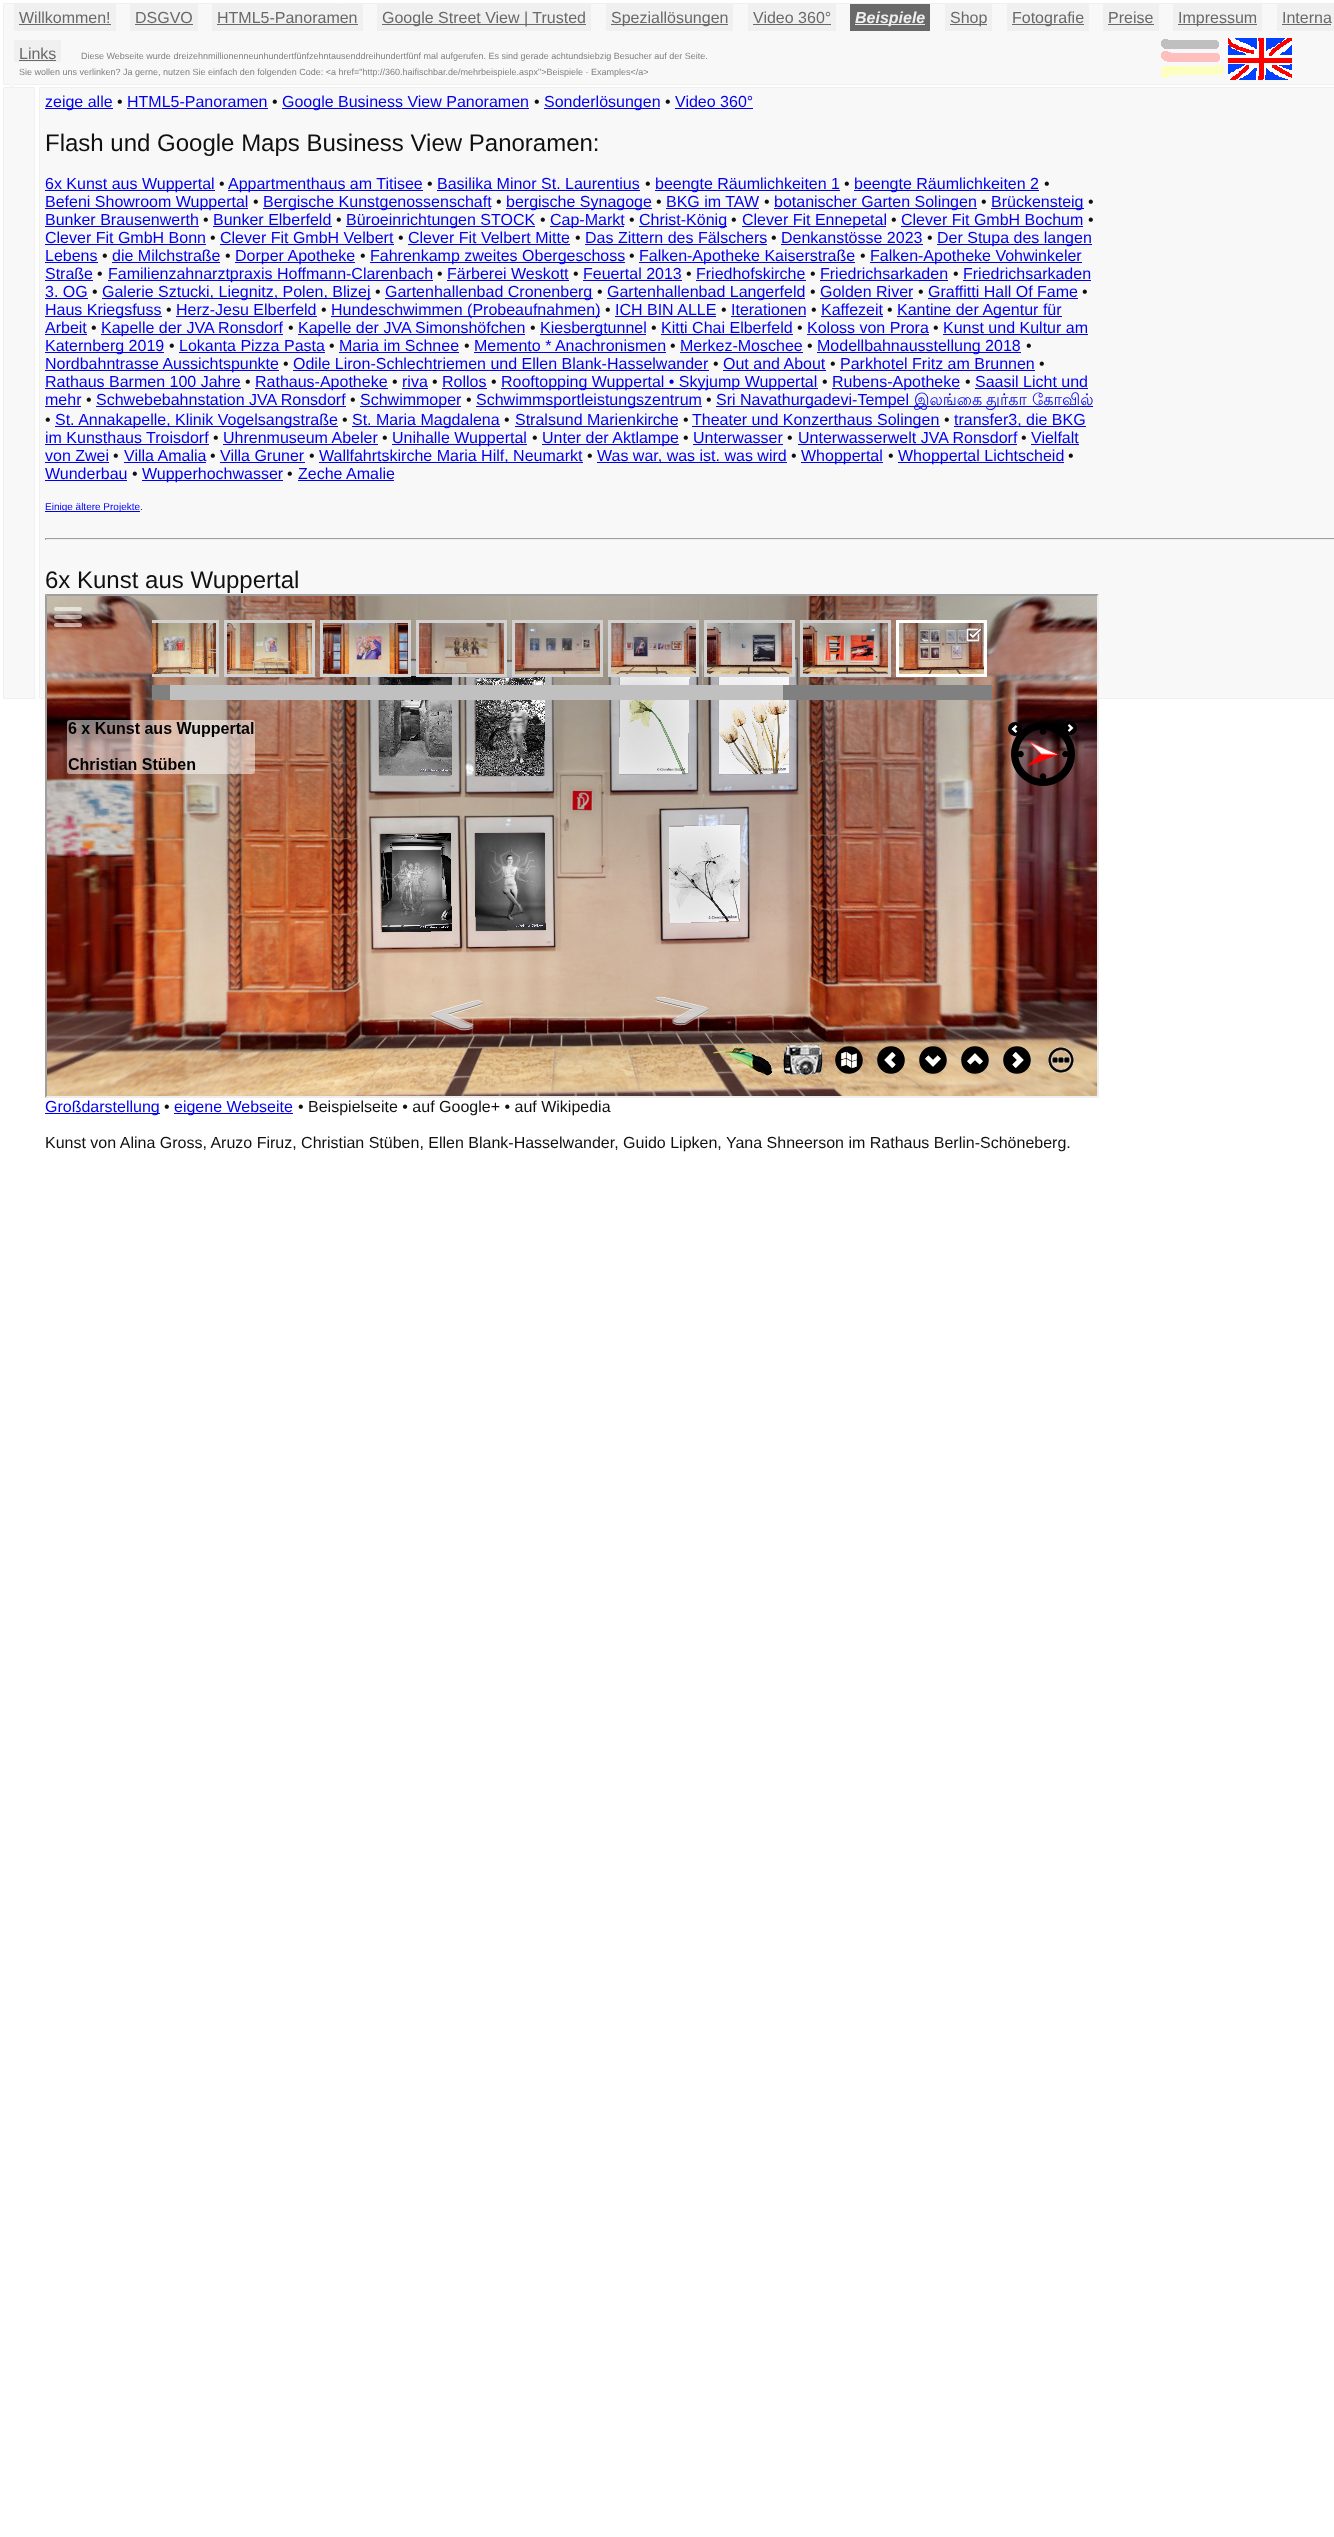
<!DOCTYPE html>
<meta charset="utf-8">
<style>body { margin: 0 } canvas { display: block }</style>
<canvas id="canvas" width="1334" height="2537"></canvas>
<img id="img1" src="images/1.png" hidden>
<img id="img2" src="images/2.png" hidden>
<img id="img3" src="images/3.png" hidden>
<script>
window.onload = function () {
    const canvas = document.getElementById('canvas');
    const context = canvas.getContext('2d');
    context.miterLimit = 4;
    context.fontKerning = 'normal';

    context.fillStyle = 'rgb(255, 255, 255)';
    context.fillRect(0, 0, 1334, 2537);
    context.fillStyle = 'rgb(248, 248, 248)';
    context.beginPath();
    context.rect(3.5, 3.5, 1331, 81);
    context.fill();
    context.strokeStyle = 'rgb(240, 240, 240)';
    context.stroke();
    context.fillStyle = 'rgb(240, 240, 240)';
    context.fillRect(14, 4, 102, 27);
    context.fillStyle = 'rgb(105, 105, 105)';
    context.fillRect(19, 24, 92, 1);
    context.fillStyle = 'rgb(240, 240, 240)';
    context.fillRect(130, 4, 68, 27);
    context.fillStyle = 'rgb(105, 105, 105)';
    context.fillRect(135, 24, 58, 1);
    context.fillStyle = 'rgb(240, 240, 240)';
    context.fillRect(212, 4, 151, 27);
    context.fillStyle = 'rgb(105, 105, 105)';
    context.fillRect(217, 24, 141, 1);
    context.fillStyle = 'rgb(240, 240, 240)';
    context.fillRect(377, 4, 214, 27);
    context.fillStyle = 'rgb(105, 105, 105)';
    context.fillRect(382, 24, 204, 1);
    context.fillStyle = 'rgb(240, 240, 240)';
    context.fillRect(606, 4, 127, 27);
    context.fillStyle = 'rgb(105, 105, 105)';
    context.fillRect(611, 24, 117, 1);
    context.fillStyle = 'rgb(240, 240, 240)';
    context.fillRect(748, 4, 88, 27);
    context.fillStyle = 'rgb(105, 105, 105)';
    context.fillRect(753, 24, 78, 1);
    context.fillRect(850, 4, 80, 27);
    context.fillStyle = 'rgb(240, 240, 240)';
    context.fillRect(855, 24, 70, 1);
    context.fillRect(945, 4, 47, 27);
    context.fillStyle = 'rgb(105, 105, 105)';
    context.fillRect(950, 24, 37, 1);
    context.fillStyle = 'rgb(240, 240, 240)';
    context.fillRect(1007, 4, 82, 27);
    context.fillStyle = 'rgb(105, 105, 105)';
    context.fillRect(1012, 24, 72, 1);
    context.fillStyle = 'rgb(240, 240, 240)';
    context.fillRect(1103, 4, 56, 27);
    context.fillStyle = 'rgb(105, 105, 105)';
    context.fillRect(1108, 24, 46, 1);
    context.fillStyle = 'rgb(240, 240, 240)';
    context.fillRect(1173, 4, 89, 27);
    context.fillStyle = 'rgb(105, 105, 105)';
    context.fillRect(1178, 24, 79, 1);
    context.fillStyle = 'rgb(240, 240, 240)';
    context.fillRect(1277, 4, 57, 27);
    context.fillStyle = 'rgb(105, 105, 105)';
    context.fillRect(1282, 24, 49, 1);
    context.fillStyle = 'rgb(240, 240, 240)';
    context.fillRect(14, 40, 47, 22);
    context.fillStyle = 'rgb(105, 105, 105)';
    context.fillRect(19, 60, 37, 1);
    context.drawImage(document.getElementById('img1'), 1161, 39, 63, 39);
    context.drawImage(document.getElementById('img2'), 1228, 38, 64, 42);
    context.fillStyle = 'rgb(248, 248, 248)';
    context.fillRect(9, 84, 5, 5);
    context.beginPath();
    context.rect(3.5, 87.5, 31, 611);
    context.fill();
    context.stroke();
    context.beginPath();
    context.rect(39.5, 87.5, 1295, 611);
    context.fill();
    context.stroke();
    context.fillStyle = 'rgb(0, 0, 238)';
    context.fillRect(45, 108, 68, 1);
    context.fillRect(127, 108, 141, 1);
    context.fillRect(282, 108, 247, 1);
    context.fillRect(544, 108, 116, 1);
    context.fillRect(675, 108, 78, 1);
    context.fillRect(45, 190, 170, 1);
    context.fillRect(228, 190, 195, 1);
    context.fillRect(437, 190, 203, 1);
    context.fillRect(655, 190, 185, 1);
    context.fillRect(854, 190, 185, 1);
    context.fillRect(45, 208, 203, 1);
    context.fillRect(263, 208, 228, 1);
    context.fillRect(506, 208, 146, 1);
    context.fillRect(666, 208, 93, 1);
    context.fillRect(774, 208, 203, 1);
    context.fillRect(991, 208, 93, 1);
    context.fillRect(45, 226, 154, 1);
    context.fillRect(213, 226, 119, 1);
    context.fillRect(346, 226, 189, 1);
    context.fillRect(550, 226, 74, 1);
    context.fillRect(639, 226, 88, 1);
    context.fillRect(742, 226, 144, 1);
    context.fillRect(901, 226, 182, 1);
    context.fillRect(45, 244, 161, 1);
    context.fillRect(220, 244, 174, 1);
    context.fillRect(408, 244, 162, 1);
    context.fillRect(585, 244, 182, 1);
    context.fillRect(781, 244, 142, 1);
    context.fillRect(937, 244, 155, 1);
    context.fillRect(45, 262, 53, 1);
    context.fillRect(112, 262, 108, 1);
    context.fillRect(235, 262, 120, 1);
    context.fillRect(370, 262, 255, 1);
    context.fillRect(639, 262, 216, 1);
    context.fillRect(870, 262, 212, 1);
    context.fillRect(45, 280, 48, 1);
    context.fillRect(108, 280, 325, 1);
    context.fillRect(447, 280, 122, 1);
    context.fillRect(583, 280, 99, 1);
    context.fillRect(696, 280, 110, 1);
    context.fillRect(820, 280, 128, 1);
    context.fillRect(963, 280, 128, 1);
    context.fillRect(45, 298, 43, 1);
    context.fillRect(102, 298, 269, 1);
    context.fillRect(385, 298, 208, 1);
    context.fillRect(607, 298, 198, 1);
    context.fillRect(820, 298, 93, 1);
    context.fillRect(928, 298, 150, 1);
    context.fillRect(45, 316, 117, 1);
    context.fillRect(176, 316, 141, 1);
    context.fillRect(331, 316, 269, 1);
    context.fillRect(615, 316, 101, 1);
    context.fillRect(731, 316, 75, 1);
    context.fillRect(821, 316, 62, 1);
    context.fillRect(897, 316, 165, 1);
    context.fillRect(45, 334, 42, 1);
    context.fillRect(101, 334, 182, 1);
    context.fillRect(298, 334, 227, 1);
    context.fillRect(540, 334, 106, 1);
    context.fillRect(661, 334, 132, 1);
    context.fillRect(807, 334, 122, 1);
    context.fillRect(943, 334, 145, 1);
    context.fillRect(45, 352, 119, 1);
    context.fillRect(179, 352, 146, 1);
    context.fillRect(339, 352, 120, 1);
    context.fillRect(474, 352, 192, 1);
    context.fillRect(680, 352, 123, 1);
    context.fillRect(817, 352, 204, 1);
    context.fillRect(45, 370, 234, 1);
    context.fillRect(293, 370, 416, 1);
    context.fillRect(723, 370, 103, 1);
    context.fillRect(840, 370, 195, 1);
    context.fillRect(45, 388, 196, 1);
    context.fillRect(255, 388, 133, 1);
    context.fillRect(402, 388, 26, 1);
    context.fillRect(442, 388, 45, 1);
    context.fillRect(501, 388, 317, 1);
    context.fillRect(832, 388, 128, 1);
    context.fillRect(975, 388, 113, 1);
    context.fillRect(45, 406, 36, 1);
    context.fillRect(96, 406, 250, 1);
    context.fillRect(360, 406, 101, 1);
    context.fillRect(476, 406, 226, 1);
    context.fillRect(716, 406, 377, 1);
    context.fillRect(55, 426, 283, 1);
    context.fillRect(352, 426, 148, 1);
    context.fillRect(515, 426, 163, 1);
    context.fillRect(692, 426, 248, 1);
    context.fillRect(954, 426, 132, 1);
    context.fillRect(45, 444, 164, 1);
    context.fillRect(223, 444, 155, 1);
    context.fillRect(392, 444, 135, 1);
    context.fillRect(542, 444, 137, 1);
    context.fillRect(693, 444, 90, 1);
    context.fillRect(798, 444, 219, 1);
    context.fillRect(1031, 444, 48, 1);
    context.fillRect(45, 462, 64, 1);
    context.fillRect(124, 462, 82, 1);
    context.fillRect(220, 462, 85, 1);
    context.fillRect(319, 462, 264, 1);
    context.fillRect(597, 462, 190, 1);
    context.fillRect(801, 462, 82, 1);
    context.fillRect(898, 462, 166, 1);
    context.fillRect(45, 480, 82, 1);
    context.fillRect(142, 480, 141, 1);
    context.fillRect(298, 480, 96, 1);
    context.fillRect(45, 511, 95, 1);
    context.fillStyle = 'rgb(159, 159, 159)';
    context.fillRect(45, 538, 1289, 1);
    context.fillStyle = 'rgb(238, 238, 238)';
    context.fillRect(45, 539, 1289, 1);
    context.fillStyle = 'rgb(159, 159, 159)';
    context.fillRect(45, 538, 1, 2);
    context.beginPath();
    context.moveTo(45, 594);
    context.lineTo(1099, 594);
    context.lineTo(1097, 596);
    context.lineTo(47, 596);
    context.closePath();
    context.fill();
    context.fillStyle = 'rgb(238, 238, 238)';
    context.beginPath();
    context.moveTo(1099, 594);
    context.lineTo(1099, 1098);
    context.lineTo(1097, 1096);
    context.lineTo(1097, 596);
    context.closePath();
    context.fill();
    context.beginPath();
    context.moveTo(1099, 1098);
    context.lineTo(45, 1098);
    context.lineTo(47, 1096);
    context.lineTo(1097, 1096);
    context.closePath();
    context.fill();
    context.fillStyle = 'rgb(159, 159, 159)';
    context.beginPath();
    context.moveTo(45, 1098);
    context.lineTo(45, 594);
    context.lineTo(47, 596);
    context.lineTo(47, 1096);
    context.closePath();
    context.fill();
    context.drawImage(document.getElementById('img3'), 47, 596, 1050, 500);
    context.fillStyle = 'rgb(0, 0, 238)';
    context.fillRect(45, 1113, 115, 1);
    context.fillRect(174, 1113, 119, 1);
    context.font = '16px Liberation Sans';
    context.fillStyle = 'rgb(105, 105, 105)';
    context.fillText('Willkommen!', 19, 23);
    context.fillText('DSGVO', 135, 23);
    context.fillText('HTML5-Panoramen', 217, 23);
    context.fillText('Google Street View | Trusted', 382, 23);
    context.fillText('Speziallösungen', 611, 23);
    context.fillText('Video 360°', 753, 23);
    context.font = 'italic bold 16px Liberation Sans';
    context.fillStyle = 'rgb(240, 240, 240)';
    context.fillText('Beispiele', 855, 23);
    context.font = '16px Liberation Sans';
    context.fillStyle = 'rgb(105, 105, 105)';
    context.fillText('Shop', 950, 23);
    context.fillText('Fotografie', 1012, 23);
    context.fillText('Preise', 1108, 23);
    context.fillText('Impressum', 1178, 23);
    context.fillText('Interna', 1282, 23);
    context.fillText('Links', 19, 59);
    context.font = '9px Liberation Sans';
    context.fillStyle = 'rgb(128, 128, 128)';
    context.fillText('Diese Webseite wurde dreizehnmillionenneunhundertfünfzehntausenddreihundertfünf mal aufgerufen. Es sind gerade achtundsiebzig Besucher auf der Seite.', 81, 59);
    context.fillText('Sie wollen uns verlinken? Ja gerne, nutzen Sie einfach den folgenden Code: <a href="http://360.haifischbar.de/mehrbeispiele.aspx">Beispiele · Examples<\/a>', 19, 75);
    context.font = '16px Liberation Sans';
    context.fillStyle = 'rgb(0, 0, 238)';
    context.fillText('zeige alle', 45, 107);
    context.fillStyle = 'rgb(16, 16, 16)';
    context.fillText('•', 117, 107);
    context.fillStyle = 'rgb(0, 0, 238)';
    context.fillText('HTML5-Panoramen', 127, 107);
    context.fillStyle = 'rgb(16, 16, 16)';
    context.fillText('•', 272, 107);
    context.fillStyle = 'rgb(0, 0, 238)';
    context.fillText('Google Business View Panoramen', 282, 107);
    context.fillStyle = 'rgb(16, 16, 16)';
    context.fillText('•', 534, 107);
    context.fillStyle = 'rgb(0, 0, 238)';
    context.fillText('Sonderlösungen', 544, 107);
    context.fillStyle = 'rgb(16, 16, 16)';
    context.fillText('•', 665, 107);
    context.fillStyle = 'rgb(0, 0, 238)';
    context.fillText('Video 360°', 675, 107);
    context.font = '24px Liberation Sans';
    context.fillStyle = 'rgb(16, 16, 16)';
    context.fillText('Flash und Google Maps Business View Panoramen:', 45, 151);
    context.font = '16px Liberation Sans';
    context.fillStyle = 'rgb(0, 0, 238)';
    context.fillText('6x Kunst aus Wuppertal', 45, 189);
    context.fillStyle = 'rgb(16, 16, 16)';
    context.fillText('•', 219, 189);
    context.fillStyle = 'rgb(0, 0, 238)';
    context.fillText('Appartmenthaus am Titisee', 228, 189);
    context.fillStyle = 'rgb(16, 16, 16)';
    context.fillText('•', 427, 189);
    context.fillStyle = 'rgb(0, 0, 238)';
    context.fillText('Basilika Minor St. Laurentius', 437, 189);
    context.fillStyle = 'rgb(16, 16, 16)';
    context.fillText('•', 645, 189);
    context.fillStyle = 'rgb(0, 0, 238)';
    context.fillText('beengte Räumlichkeiten 1', 655, 189);
    context.fillStyle = 'rgb(16, 16, 16)';
    context.fillText('•', 844, 189);
    context.fillStyle = 'rgb(0, 0, 238)';
    context.fillText('beengte Räumlichkeiten 2', 854, 189);
    context.fillStyle = 'rgb(16, 16, 16)';
    context.fillText('•', 1044, 189);
    context.fillStyle = 'rgb(0, 0, 238)';
    context.fillText('Befeni Showroom Wuppertal', 45, 207);
    context.fillStyle = 'rgb(16, 16, 16)';
    context.fillText('•', 253, 207);
    context.fillStyle = 'rgb(0, 0, 238)';
    context.fillText('Bergische Kunstgenossenschaft', 263, 207);
    context.fillStyle = 'rgb(16, 16, 16)';
    context.fillText('•', 496, 207);
    context.fillStyle = 'rgb(0, 0, 238)';
    context.fillText('bergische Synagoge', 506, 207);
    context.fillStyle = 'rgb(16, 16, 16)';
    context.fillText('•', 656, 207);
    context.fillStyle = 'rgb(0, 0, 238)';
    context.fillText('BKG im TAW', 666, 207);
    context.fillStyle = 'rgb(16, 16, 16)';
    context.fillText('•', 764, 207);
    context.fillStyle = 'rgb(0, 0, 238)';
    context.fillText('botanischer Garten Solingen', 774, 207);
    context.fillStyle = 'rgb(16, 16, 16)';
    context.fillText('•', 981, 207);
    context.fillStyle = 'rgb(0, 0, 238)';
    context.fillText('Brückensteig', 991, 207);
    context.fillStyle = 'rgb(16, 16, 16)';
    context.fillText('•', 1088, 207);
    context.fillStyle = 'rgb(0, 0, 238)';
    context.fillText('Bunker Brausenwerth', 45, 225);
    context.fillStyle = 'rgb(16, 16, 16)';
    context.fillText('•', 203, 225);
    context.fillStyle = 'rgb(0, 0, 238)';
    context.fillText('Bunker Elberfeld', 213, 225);
    context.fillStyle = 'rgb(16, 16, 16)';
    context.fillText('•', 336, 225);
    context.fillStyle = 'rgb(0, 0, 238)';
    context.fillText('Büroeinrichtungen STOCK', 346, 225);
    context.fillStyle = 'rgb(16, 16, 16)';
    context.fillText('•', 540, 225);
    context.fillStyle = 'rgb(0, 0, 238)';
    context.fillText('Cap-Markt', 550, 225);
    context.fillStyle = 'rgb(16, 16, 16)';
    context.fillText('•', 629, 225);
    context.fillStyle = 'rgb(0, 0, 238)';
    context.fillText('Christ-König', 639, 225);
    context.fillStyle = 'rgb(16, 16, 16)';
    context.fillText('•', 731, 225);
    context.fillStyle = 'rgb(0, 0, 238)';
    context.fillText('Clever Fit Ennepetal', 742, 225);
    context.fillStyle = 'rgb(16, 16, 16)';
    context.fillText('•', 891, 225);
    context.fillStyle = 'rgb(0, 0, 238)';
    context.fillText('Clever Fit GmbH Bochum', 901, 225);
    context.fillStyle = 'rgb(16, 16, 16)';
    context.fillText('•', 1088, 225);
    context.fillStyle = 'rgb(0, 0, 238)';
    context.fillText('Clever Fit GmbH Bonn', 45, 243);
    context.fillStyle = 'rgb(16, 16, 16)';
    context.fillText('•', 210, 243);
    context.fillStyle = 'rgb(0, 0, 238)';
    context.fillText('Clever Fit GmbH Velbert', 220, 243);
    context.fillStyle = 'rgb(16, 16, 16)';
    context.fillText('•', 398, 243);
    context.fillStyle = 'rgb(0, 0, 238)';
    context.fillText('Clever Fit Velbert Mitte', 408, 243);
    context.fillStyle = 'rgb(16, 16, 16)';
    context.fillText('•', 575, 243);
    context.fillStyle = 'rgb(0, 0, 238)';
    context.fillText('Das Zittern des Fälschers', 585, 243);
    context.fillStyle = 'rgb(16, 16, 16)';
    context.fillText('•', 771, 243);
    context.fillStyle = 'rgb(0, 0, 238)';
    context.fillText('Denkanstösse 2023', 781, 243);
    context.fillStyle = 'rgb(16, 16, 16)';
    context.fillText('•', 927, 243);
    context.fillStyle = 'rgb(0, 0, 238)';
    context.fillText('Der Stupa des langen', 937, 243);
    context.fillText('Lebens', 45, 261);
    context.fillStyle = 'rgb(16, 16, 16)';
    context.fillText('•', 102, 261);
    context.fillStyle = 'rgb(0, 0, 238)';
    context.fillText('die Milchstraße', 112, 261);
    context.fillStyle = 'rgb(16, 16, 16)';
    context.fillText('•', 225, 261);
    context.fillStyle = 'rgb(0, 0, 238)';
    context.fillText('Dorper Apotheke', 235, 261);
    context.fillStyle = 'rgb(16, 16, 16)';
    context.fillText('•', 360, 261);
    context.fillStyle = 'rgb(0, 0, 238)';
    context.fillText('Fahrenkamp zweites Obergeschoss', 370, 261);
    context.fillStyle = 'rgb(16, 16, 16)';
    context.fillText('•', 629, 261);
    context.fillStyle = 'rgb(0, 0, 238)';
    context.fillText('Falken-Apotheke Kaiserstraße', 639, 261);
    context.fillStyle = 'rgb(16, 16, 16)';
    context.fillText('•', 860, 261);
    context.fillStyle = 'rgb(0, 0, 238)';
    context.fillText('Falken-Apotheke Vohwinkeler', 870, 261);
    context.fillText('Straße', 45, 279);
    context.fillStyle = 'rgb(16, 16, 16)';
    context.fillText('•', 97, 279);
    context.fillStyle = 'rgb(0, 0, 238)';
    context.fillText('Familienzahnarztpraxis Hoffmann-Clarenbach', 108, 279);
    context.fillStyle = 'rgb(16, 16, 16)';
    context.fillText('•', 437, 279);
    context.fillStyle = 'rgb(0, 0, 238)';
    context.fillText('Färberei Weskott', 447, 279);
    context.fillStyle = 'rgb(16, 16, 16)';
    context.fillText('•', 573, 279);
    context.fillStyle = 'rgb(0, 0, 238)';
    context.fillText('Feuertal 2013', 583, 279);
    context.fillStyle = 'rgb(16, 16, 16)';
    context.fillText('•', 686, 279);
    context.fillStyle = 'rgb(0, 0, 238)';
    context.fillText('Friedhofskirche', 696, 279);
    context.fillStyle = 'rgb(16, 16, 16)';
    context.fillText('•', 810, 279);
    context.fillStyle = 'rgb(0, 0, 238)';
    context.fillText('Friedrichsarkaden', 820, 279);
    context.fillStyle = 'rgb(16, 16, 16)';
    context.fillText('•', 953, 279);
    context.fillStyle = 'rgb(0, 0, 238)';
    context.fillText('Friedrichsarkaden', 963, 279);
    context.fillText('3. OG', 45, 297);
    context.fillStyle = 'rgb(16, 16, 16)';
    context.fillText('•', 92, 297);
    context.fillStyle = 'rgb(0, 0, 238)';
    context.fillText('Galerie Sztucki, Liegnitz, Polen, Blizej', 102, 297);
    context.fillStyle = 'rgb(16, 16, 16)';
    context.fillText('•', 375, 297);
    context.fillStyle = 'rgb(0, 0, 238)';
    context.fillText('Gartenhallenbad Cronenberg', 385, 297);
    context.fillStyle = 'rgb(16, 16, 16)';
    context.fillText('•', 597, 297);
    context.fillStyle = 'rgb(0, 0, 238)';
    context.fillText('Gartenhallenbad Langerfeld', 607, 297);
    context.fillStyle = 'rgb(16, 16, 16)';
    context.fillText('•', 810, 297);
    context.fillStyle = 'rgb(0, 0, 238)';
    context.fillText('Golden River', 820, 297);
    context.fillStyle = 'rgb(16, 16, 16)';
    context.fillText('•', 918, 297);
    context.fillStyle = 'rgb(0, 0, 238)';
    context.fillText('Graffitti Hall Of Fame', 928, 297);
    context.fillStyle = 'rgb(16, 16, 16)';
    context.fillText('•', 1082, 297);
    context.fillStyle = 'rgb(0, 0, 238)';
    context.fillText('Haus Kriegsfuss', 45, 315);
    context.fillStyle = 'rgb(16, 16, 16)';
    context.fillText('•', 166, 315);
    context.fillStyle = 'rgb(0, 0, 238)';
    context.fillText('Herz-Jesu Elberfeld', 176, 315);
    context.fillStyle = 'rgb(16, 16, 16)';
    context.fillText('•', 321, 315);
    context.fillStyle = 'rgb(0, 0, 238)';
    context.fillText('Hundeschwimmen (Probeaufnahmen)', 331, 315);
    context.fillStyle = 'rgb(16, 16, 16)';
    context.fillText('•', 605, 315);
    context.fillStyle = 'rgb(0, 0, 238)';
    context.fillText('ICH BIN ALLE', 615, 315);
    context.fillStyle = 'rgb(16, 16, 16)';
    context.fillText('•', 721, 315);
    context.fillStyle = 'rgb(0, 0, 238)';
    context.fillText('Iterationen', 731, 315);
    context.fillStyle = 'rgb(16, 16, 16)';
    context.fillText('•', 811, 315);
    context.fillStyle = 'rgb(0, 0, 238)';
    context.fillText('Kaffezeit', 821, 315);
    context.fillStyle = 'rgb(16, 16, 16)';
    context.fillText('•', 887, 315);
    context.fillStyle = 'rgb(0, 0, 238)';
    context.fillText('Kantine der Agentur für', 897, 315);
    context.fillText('Arbeit', 45, 333);
    context.fillStyle = 'rgb(16, 16, 16)';
    context.fillText('•', 91, 333);
    context.fillStyle = 'rgb(0, 0, 238)';
    context.fillText('Kapelle der JVA Ronsdorf', 101, 333);
    context.fillStyle = 'rgb(16, 16, 16)';
    context.fillText('•', 288, 333);
    context.fillStyle = 'rgb(0, 0, 238)';
    context.fillText('Kapelle der JVA Simonshöfchen', 298, 333);
    context.fillStyle = 'rgb(16, 16, 16)';
    context.fillText('•', 530, 333);
    context.fillStyle = 'rgb(0, 0, 238)';
    context.fillText('Kiesbergtunnel', 540, 333);
    context.fillStyle = 'rgb(16, 16, 16)';
    context.fillText('•', 651, 333);
    context.fillStyle = 'rgb(0, 0, 238)';
    context.fillText('Kitti Chai Elberfeld', 661, 333);
    context.fillStyle = 'rgb(16, 16, 16)';
    context.fillText('•', 797, 333);
    context.fillStyle = 'rgb(0, 0, 238)';
    context.fillText('Koloss von Prora', 807, 333);
    context.fillStyle = 'rgb(16, 16, 16)';
    context.fillText('•', 933, 333);
    context.fillStyle = 'rgb(0, 0, 238)';
    context.fillText('Kunst und Kultur am', 943, 333);
    context.fillText('Katernberg 2019', 45, 351);
    context.fillStyle = 'rgb(16, 16, 16)';
    context.fillText('•', 169, 351);
    context.fillStyle = 'rgb(0, 0, 238)';
    context.fillText('Lokanta Pizza Pasta', 179, 351);
    context.fillStyle = 'rgb(16, 16, 16)';
    context.fillText('•', 329, 351);
    context.fillStyle = 'rgb(0, 0, 238)';
    context.fillText('Maria im Schnee', 339, 351);
    context.fillStyle = 'rgb(16, 16, 16)';
    context.fillText('•', 464, 351);
    context.fillStyle = 'rgb(0, 0, 238)';
    context.fillText('Memento * Anachronismen', 474, 351);
    context.fillStyle = 'rgb(16, 16, 16)';
    context.fillText('•', 670, 351);
    context.fillStyle = 'rgb(0, 0, 238)';
    context.fillText('Merkez-Moschee', 680, 351);
    context.fillStyle = 'rgb(16, 16, 16)';
    context.fillText('•', 807, 351);
    context.fillStyle = 'rgb(0, 0, 238)';
    context.fillText('Modellbahnausstellung 2018', 817, 351);
    context.fillStyle = 'rgb(16, 16, 16)';
    context.fillText('•', 1026, 351);
    context.fillStyle = 'rgb(0, 0, 238)';
    context.fillText('Nordbahntrasse Aussichtspunkte', 45, 369);
    context.fillStyle = 'rgb(16, 16, 16)';
    context.fillText('•', 283, 369);
    context.fillStyle = 'rgb(0, 0, 238)';
    context.fillText('Odile Liron-Schlechtriemen und Ellen Blank-Hasselwander', 293, 369);
    context.fillStyle = 'rgb(16, 16, 16)';
    context.fillText('•', 713, 369);
    context.fillStyle = 'rgb(0, 0, 238)';
    context.fillText('Out and About', 723, 369);
    context.fillStyle = 'rgb(16, 16, 16)';
    context.fillText('•', 830, 369);
    context.fillStyle = 'rgb(0, 0, 238)';
    context.fillText('Parkhotel Fritz am Brunnen', 840, 369);
    context.fillStyle = 'rgb(16, 16, 16)';
    context.fillText('•', 1039, 369);
    context.fillStyle = 'rgb(0, 0, 238)';
    context.fillText('Rathaus Barmen 100 Jahre', 45, 387);
    context.fillStyle = 'rgb(16, 16, 16)';
    context.fillText('•', 245, 387);
    context.fillStyle = 'rgb(0, 0, 238)';
    context.fillText('Rathaus-Apotheke', 255, 387);
    context.fillStyle = 'rgb(16, 16, 16)';
    context.fillText('•', 392, 387);
    context.fillStyle = 'rgb(0, 0, 238)';
    context.fillText('riva', 402, 387);
    context.fillStyle = 'rgb(16, 16, 16)';
    context.fillText('•', 432, 387);
    context.fillStyle = 'rgb(0, 0, 238)';
    context.fillText('Rollos', 442, 387);
    context.fillStyle = 'rgb(16, 16, 16)';
    context.fillText('•', 491, 387);
    context.fillStyle = 'rgb(0, 0, 238)';
    context.fillText('Rooftopping Wuppertal • Skyjump Wuppertal', 501, 387);
    context.fillStyle = 'rgb(16, 16, 16)';
    context.fillText('•', 822, 387);
    context.fillStyle = 'rgb(0, 0, 238)';
    context.fillText('Rubens-Apotheke', 832, 387);
    context.fillStyle = 'rgb(16, 16, 16)';
    context.fillText('•', 965, 387);
    context.fillStyle = 'rgb(0, 0, 238)';
    context.fillText('Saasil Licht und', 975, 387);
    context.fillText('mehr', 45, 405);
    context.fillStyle = 'rgb(16, 16, 16)';
    context.fillText('•', 86, 405);
    context.fillStyle = 'rgb(0, 0, 238)';
    context.fillText('Schwebebahnstation JVA Ronsdorf', 96, 405);
    context.fillStyle = 'rgb(16, 16, 16)';
    context.fillText('•', 350, 405);
    context.fillStyle = 'rgb(0, 0, 238)';
    context.fillText('Schwimmoper', 360, 405);
    context.fillStyle = 'rgb(16, 16, 16)';
    context.fillText('•', 466, 405);
    context.fillStyle = 'rgb(0, 0, 238)';
    context.fillText('Schwimmsportleistungszentrum', 476, 405);
    context.fillStyle = 'rgb(16, 16, 16)';
    context.fillText('•', 706, 405);
    context.fillStyle = 'rgb(0, 0, 238)';
    context.fillText('Sri Navathurgadevi-Tempel', 716, 405);
    context.font = '16px Lohit Tamil';
    context.fillText('இலங்கை', 914, 405);
    context.fillText('துர்கா', 986, 405);
    context.fillText('கோவில்', 1032, 405);
    context.font = '16px Liberation Sans';
    context.fillStyle = 'rgb(16, 16, 16)';
    context.fillText('•', 45, 425);
    context.fillStyle = 'rgb(0, 0, 238)';
    context.fillText('St. Annakapelle, Klinik Vogelsangstraße', 55, 425);
    context.fillStyle = 'rgb(16, 16, 16)';
    context.fillText('•', 342, 425);
    context.fillStyle = 'rgb(0, 0, 238)';
    context.fillText('St. Maria Magdalena', 352, 425);
    context.fillStyle = 'rgb(16, 16, 16)';
    context.fillText('•', 504, 425);
    context.fillStyle = 'rgb(0, 0, 238)';
    context.fillText('Stralsund Marienkirche', 515, 425);
    context.fillStyle = 'rgb(16, 16, 16)';
    context.fillText('•', 683, 425);
    context.fillStyle = 'rgb(0, 0, 238)';
    context.fillText('Theater und Konzerthaus Solingen', 692, 425);
    context.fillStyle = 'rgb(16, 16, 16)';
    context.fillText('•', 944, 425);
    context.fillStyle = 'rgb(0, 0, 238)';
    context.fillText('transfer3, die BKG', 954, 425);
    context.fillText('im Kunsthaus Troisdorf', 45, 443);
    context.fillStyle = 'rgb(16, 16, 16)';
    context.fillText('•', 213, 443);
    context.fillStyle = 'rgb(0, 0, 238)';
    context.fillText('Uhrenmuseum Abeler', 223, 443);
    context.fillStyle = 'rgb(16, 16, 16)';
    context.fillText('•', 382, 443);
    context.fillStyle = 'rgb(0, 0, 238)';
    context.fillText('Unihalle Wuppertal', 392, 443);
    context.fillStyle = 'rgb(16, 16, 16)';
    context.fillText('•', 532, 443);
    context.fillStyle = 'rgb(0, 0, 238)';
    context.fillText('Unter der Aktlampe', 542, 443);
    context.fillStyle = 'rgb(16, 16, 16)';
    context.fillText('•', 683, 443);
    context.fillStyle = 'rgb(0, 0, 238)';
    context.fillText('Unterwasser', 693, 443);
    context.fillStyle = 'rgb(16, 16, 16)';
    context.fillText('•', 787, 443);
    context.fillStyle = 'rgb(0, 0, 238)';
    context.fillText('Unterwasserwelt JVA Ronsdorf', 798, 443);
    context.fillStyle = 'rgb(16, 16, 16)';
    context.fillText('•', 1021, 443);
    context.fillStyle = 'rgb(0, 0, 238)';
    context.fillText('Vielfalt', 1031, 443);
    context.fillText('von Zwei', 45, 461);
    context.fillStyle = 'rgb(16, 16, 16)';
    context.fillText('•', 113, 461);
    context.fillStyle = 'rgb(0, 0, 238)';
    context.fillText('Villa Amalia', 124, 461);
    context.fillStyle = 'rgb(16, 16, 16)';
    context.fillText('•', 210, 461);
    context.fillStyle = 'rgb(0, 0, 238)';
    context.fillText('Villa Gruner', 220, 461);
    context.fillStyle = 'rgb(16, 16, 16)';
    context.fillText('•', 309, 461);
    context.fillStyle = 'rgb(0, 0, 238)';
    context.fillText('Wallfahrtskirche Maria Hilf, Neumarkt', 319, 461);
    context.fillStyle = 'rgb(16, 16, 16)';
    context.fillText('•', 587, 461);
    context.fillStyle = 'rgb(0, 0, 238)';
    context.fillText('Was war, was ist. was wird', 597, 461);
    context.fillStyle = 'rgb(16, 16, 16)';
    context.fillText('•', 791, 461);
    context.fillStyle = 'rgb(0, 0, 238)';
    context.fillText('Whoppertal', 801, 461);
    context.fillStyle = 'rgb(16, 16, 16)';
    context.fillText('•', 888, 461);
    context.fillStyle = 'rgb(0, 0, 238)';
    context.fillText('Whoppertal Lichtscheid', 898, 461);
    context.fillStyle = 'rgb(16, 16, 16)';
    context.fillText('•', 1068, 461);
    context.fillStyle = 'rgb(0, 0, 238)';
    context.fillText('Wunderbau', 45, 479);
    context.fillStyle = 'rgb(16, 16, 16)';
    context.fillText('•', 132, 479);
    context.fillStyle = 'rgb(0, 0, 238)';
    context.fillText('Wupperhochwasser', 142, 479);
    context.fillStyle = 'rgb(16, 16, 16)';
    context.fillText('•', 287, 479);
    context.fillStyle = 'rgb(0, 0, 238)';
    context.fillText('Zeche Amalie', 298, 479);
    context.font = '10px Liberation Sans';
    context.fillText('Einige ältere Projekte', 45, 510);
    context.fillStyle = 'rgb(16, 16, 16)';
    context.fillText('.', 140, 510);
    context.font = '24px Liberation Sans';
    context.fillText('6x Kunst aus Wuppertal', 45, 588);
    context.font = '16px Liberation Sans';
    context.fillStyle = 'rgb(0, 0, 238)';
    context.fillText('Großdarstellung', 45, 1112);
    context.fillStyle = 'rgb(16, 16, 16)';
    context.fillText('•', 164, 1112);
    context.fillStyle = 'rgb(0, 0, 238)';
    context.fillText('eigene Webseite', 174, 1112);
    context.fillStyle = 'rgb(16, 16, 16)';
    context.fillText('• Beispielseite • auf Google+ • auf Wikipedia', 298, 1112);
    context.fillText('Kunst von Alina Gross, Aruzo Firuz, Christian Stüben, Ellen Blank-Hasselwander, Guido Lipken, Yana Shneerson im Rathaus Berlin-Schöneberg.', 45, 1148);
};
</script>
